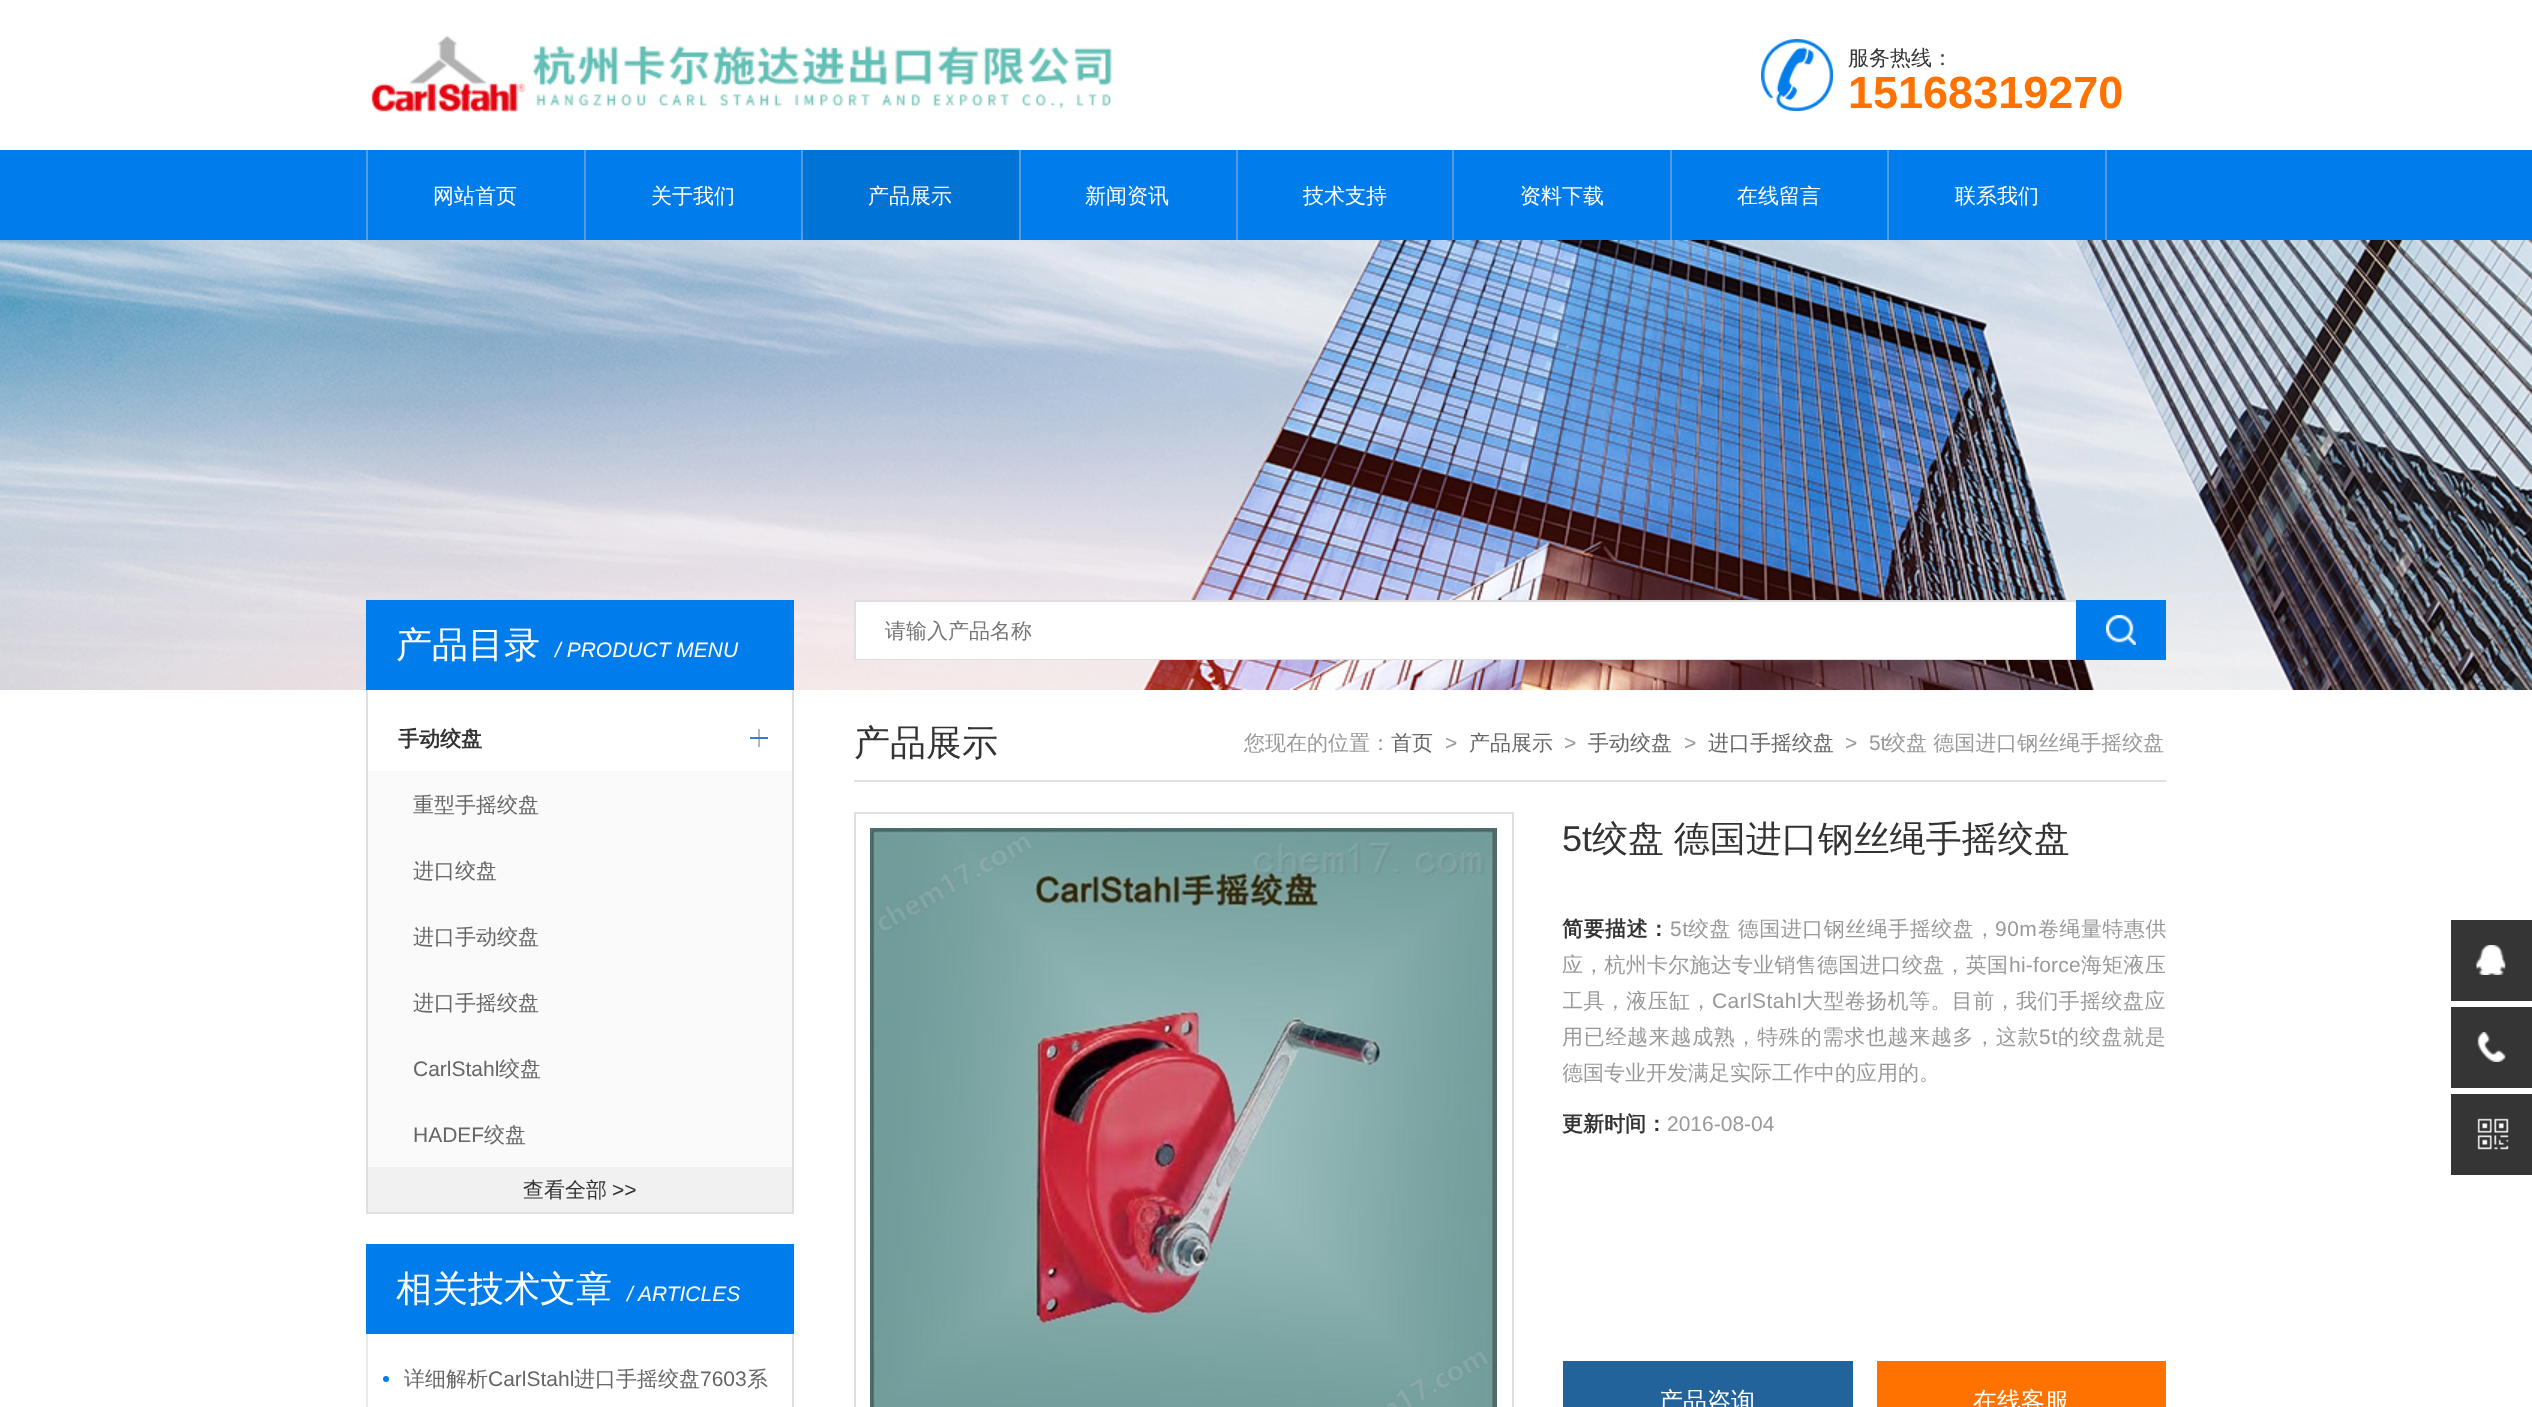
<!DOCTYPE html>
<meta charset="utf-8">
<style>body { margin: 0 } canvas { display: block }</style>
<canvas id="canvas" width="2532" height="1407"></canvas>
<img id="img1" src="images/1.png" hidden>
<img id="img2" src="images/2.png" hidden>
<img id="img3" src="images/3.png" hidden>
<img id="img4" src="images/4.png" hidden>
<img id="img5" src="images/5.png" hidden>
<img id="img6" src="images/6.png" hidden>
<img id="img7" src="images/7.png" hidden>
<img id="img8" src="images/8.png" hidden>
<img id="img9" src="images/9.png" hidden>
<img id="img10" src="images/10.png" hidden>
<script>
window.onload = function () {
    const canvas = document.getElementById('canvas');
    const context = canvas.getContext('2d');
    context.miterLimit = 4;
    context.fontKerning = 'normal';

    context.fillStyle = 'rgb(255, 255, 255)';
    context.fillRect(0, 0, 2532, 1407);
    context.drawImage(document.getElementById('img1'), 371, 35, 741, 77);
    context.drawImage(document.getElementById('img2'), 1761, 39, 72, 72);
    context.fillStyle = 'rgb(0, 125, 235)';
    context.fillRect(0, 150, 2532, 90);
    context.fillStyle = 'rgb(79, 157, 232)';
    context.fillRect(366, 150, 2, 90);
    context.fillRect(584, 150, 2, 90);
    context.fillRect(801, 150, 2, 90);
    context.fillRect(1019, 150, 2, 90);
    context.fillStyle = 'rgb(0, 115, 214)';
    context.beginPath();
    context.roundRect(803, 150, 216, 90, 3);
    context.fill();
    context.fillStyle = 'rgb(79, 157, 232)';
    context.fillRect(1236, 150, 2, 90);
    context.fillRect(1452, 150, 2, 90);
    context.fillRect(1670, 150, 2, 90);
    context.fillRect(1887, 150, 2, 90);
    context.fillRect(2105, 150, 2, 90);
    context.drawImage(document.getElementById('img3'), 0, 240, 2532, 450);
    context.fillStyle = 'rgb(0, 125, 235)';
    context.fillRect(366, 600, 428, 90);
    context.fillStyle = 'rgb(223, 223, 223)';
    context.fillRect(792, 690, 2, 524);
    context.fillRect(366, 690, 2, 524);
    context.fillRect(368, 1212, 424, 2);
    context.drawImage(document.getElementById('img4'), 750, 729, 18, 18);
    context.drawImage(document.getElementById('img5'), 750, 737, 18, 2);
    context.fillStyle = 'rgb(250, 250, 250)';
    context.fillRect(368, 771, 424, 396);
    context.fillStyle = 'rgb(241, 241, 241)';
    context.fillRect(368, 1167, 424, 45);
    context.fillStyle = 'rgb(0, 125, 235)';
    context.fillRect(366, 1244, 428, 90);
    context.fillStyle = 'rgb(223, 223, 223)';
    context.fillRect(792, 1334, 2, 73);
    context.fillStyle = 'rgb(234, 234, 234)';
    context.fillRect(366, 1334, 2, 73);
    context.fillStyle = 'rgb(0, 125, 235)';
    context.beginPath();
    context.arc(386, 1379, 3, 0, 2 * Math.PI);
    context.fill();
    context.fillStyle = 'rgb(255, 255, 255)';
    context.fillRect(856, 602, 1220, 57);
    context.fillStyle = 'rgb(223, 223, 223)';
    context.fillRect(854, 600, 1222, 2);
    context.fillRect(854, 659, 1222, 1);
    context.fillRect(854, 600, 2, 60);
    context.fillStyle = 'rgb(0, 125, 235)';
    context.fillRect(2076, 600, 90, 60);
    context.drawImage(document.getElementById('img6'), 2106, 615, 30, 30);
    context.fillStyle = 'rgb(223, 223, 223)';
    context.fillRect(854, 780, 1312, 2);
    context.strokeStyle = 'rgb(223, 223, 223)';
    context.lineWidth = 2;
    context.strokeRect(855, 813, 658, 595);
    context.drawImage(document.getElementById('img7'), 870, 828, 627, 579);
    context.fillStyle = 'rgb(34, 99, 155)';
    context.fillRect(1563, 1361, 290, 46);
    context.fillStyle = 'rgb(255, 114, 0)';
    context.fillRect(1877, 1361, 289, 46);
    context.fillStyle = 'rgb(53, 53, 53)';
    context.fillRect(2451, 920, 81, 81);
    context.drawImage(document.getElementById('img8'), 2476, 945, 30, 30);
    context.fillRect(2451, 1007, 81, 81);
    context.drawImage(document.getElementById('img9'), 2477, 1032, 29, 30);
    context.fillRect(2451, 1094, 81, 81);
    context.drawImage(document.getElementById('img10'), 2477, 1118, 32, 32);
    context.font = '500 21px WenQuanYi Zen Hei';
    context.fillStyle = 'rgb(51, 51, 51)';
    context.fillText('服务热线：', 1848, 65);
    context.font = 'bold 45px Liberation Sans';
    context.fillStyle = 'rgb(255, 114, 0)';
    context.fillText('15168319270', 1848, 108);
    context.font = '500 21px WenQuanYi Zen Hei';
    context.fillStyle = 'rgb(255, 255, 255)';
    context.fillText('网站首页', 433, 203);
    context.fillText('关于我们', 651, 203);
    context.fillText('产品展示', 868, 203);
    context.fillText('新闻资讯', 1085, 203);
    context.fillText('技术支持', 1303, 203);
    context.fillText('资料下载', 1520, 203);
    context.fillText('在线留言', 1737, 203);
    context.fillText('联系我们', 1955, 203);
    context.font = '500 36px WenQuanYi Zen Hei';
    context.fillText('产品目录', 396, 657);
    context.font = 'italic 21px Liberation Sans';
    context.fillText('/ PRODUCT MENU', 555, 657);
    context.font = 'bold 21px WenQuanYi Zen Hei';
    context.fillStyle = 'rgb(51, 51, 51)';
    context.fillText('手动绞盘', 398, 746);
    context.font = '500 21px WenQuanYi Zen Hei';
    context.fillStyle = 'rgb(102, 102, 102)';
    context.fillText('重型手摇绞盘', 413, 812);
    context.fillText('进口绞盘', 413, 878);
    context.fillText('进口手动绞盘', 413, 944);
    context.fillText('进口手摇绞盘', 413, 1010);
    context.font = '21px Liberation Sans';
    context.fillText('CarlStahl', 413, 1076);
    context.font = '500 21px WenQuanYi Zen Hei';
    context.fillText('绞盘', 499, 1076);
    context.font = '21px Liberation Sans';
    context.fillText('HADEF', 413, 1142);
    context.font = '500 21px WenQuanYi Zen Hei';
    context.fillText('绞盘', 484, 1142);
    context.fillStyle = 'rgb(51, 51, 51)';
    context.fillText('查看全部', 523, 1197);
    context.font = '21px Liberation Sans';
    context.fillText('>>', 612, 1197);
    context.font = '500 36px WenQuanYi Zen Hei';
    context.fillStyle = 'rgb(255, 255, 255)';
    context.fillText('相关技术文章', 396, 1301);
    context.font = 'italic 21px Liberation Sans';
    context.fillText('/ ARTICLES', 627, 1301);
    context.font = '500 21px WenQuanYi Zen Hei';
    context.fillStyle = 'rgb(102, 102, 102)';
    context.fillText('详细解析', 404, 1386);
    context.font = '21px Liberation Sans';
    context.fillText('CarlStahl', 488, 1386);
    context.font = '500 21px WenQuanYi Zen Hei';
    context.fillText('进口手摇绞盘', 574, 1386);
    context.font = '21px Liberation Sans';
    context.fillText('7603', 700, 1386);
    context.font = '500 21px WenQuanYi Zen Hei';
    context.fillText('系', 747, 1386);
    context.fillStyle = 'rgb(117, 117, 117)';
    context.fillText('请输入产品名称', 885, 638);
    context.font = '500 36px WenQuanYi Zen Hei';
    context.fillStyle = 'rgb(51, 51, 51)';
    context.fillText('产品展示', 854, 755);
    context.font = '500 21px WenQuanYi Zen Hei';
    context.fillStyle = 'rgb(153, 153, 153)';
    context.fillText('您现在的位置：', 1244, 750);
    context.fillStyle = 'rgb(102, 102, 102)';
    context.fillText('首页', 1391, 750);
    context.font = '21px Liberation Sans';
    context.fillStyle = 'rgb(153, 153, 153)';
    context.fillText('>', 1445, 750);
    context.font = '500 21px WenQuanYi Zen Hei';
    context.fillStyle = 'rgb(102, 102, 102)';
    context.fillText('产品展示', 1469, 750);
    context.font = '21px Liberation Sans';
    context.fillStyle = 'rgb(153, 153, 153)';
    context.fillText('>', 1564, 750);
    context.font = '500 21px WenQuanYi Zen Hei';
    context.fillStyle = 'rgb(102, 102, 102)';
    context.fillText('手动绞盘', 1588, 750);
    context.font = '21px Liberation Sans';
    context.fillStyle = 'rgb(153, 153, 153)';
    context.fillText('>', 1684, 750);
    context.font = '500 21px WenQuanYi Zen Hei';
    context.fillStyle = 'rgb(102, 102, 102)';
    context.fillText('进口手摇绞盘', 1708, 750);
    context.font = '21px Liberation Sans';
    context.fillStyle = 'rgb(153, 153, 153)';
    context.fillText('>  5t', 1845, 750);
    context.font = '500 21px WenQuanYi Zen Hei';
    context.fillText('绞盘 德国进口钢丝绳手摇绞盘', 1885, 750);
    context.font = '36px Liberation Sans';
    context.fillStyle = 'rgb(51, 51, 51)';
    context.fillText('5t', 1562, 851);
    context.wordSpacing = '-1px';
    context.font = '500 36px WenQuanYi Zen Hei';
    context.fillText('绞盘 德国进口钢丝绳手摇绞盘', 1592, 851);
    context.letterSpacing = '0.5px';
    context.wordSpacing = '0px';
    context.font = 'bold 21px WenQuanYi Zen Hei';
    context.fillText('简要描述：', 1562, 936);
    context.font = '21px Liberation Sans';
    context.fillStyle = 'rgb(153, 153, 153)';
    context.fillText('5t', 1670, 936);
    context.font = '500 21px WenQuanYi Zen Hei';
    context.fillText('绞盘 德国进口钢丝绳手摇绞盘，', 1688, 936);
    context.font = '21px Liberation Sans';
    context.fillText('90m', 1995, 936);
    context.font = '500 21px WenQuanYi Zen Hei';
    context.fillText('卷绳量特惠供', 2038, 936);
    context.letterSpacing = '0.25px';
    context.fillText('应，杭州卡尔施达专业销售德国进口绞盘，英国', 1562, 972);
    context.font = '21px Liberation Sans';
    context.fillText('hi-force', 2009, 972);
    context.font = '500 21px WenQuanYi Zen Hei';
    context.fillText('海矩液压', 2081, 972);
    context.save();
    context.beginPath();
    context.rect(1563, 911, 603, 180);
    context.clip();
    context.letterSpacing = '0.4px';
    context.fillText('工具，液压缸，', 1562, 1008);
    context.restore();
    context.letterSpacing = '0.4px';
    context.font = '21px Liberation Sans';
    context.fillText('CarlStahl', 1712, 1008);
    context.font = '500 21px WenQuanYi Zen Hei';
    context.fillText('大型卷扬机等。目前，我们手摇绞盘应', 1802, 1008);
    context.letterSpacing = '0.7px';
    context.fillText('用已经越来越成熟，特殊的需求也越来越多，这款', 1562, 1044);
    context.font = '21px Liberation Sans';
    context.fillText('5t', 2039, 1044);
    context.font = '500 21px WenQuanYi Zen Hei';
    context.fillText('的绞盘就是', 2058, 1044);
    context.save();
    context.beginPath();
    context.rect(1563, 911, 603, 180);
    context.clip();
    context.letterSpacing = '0px';
    context.fillText('德国专业开发满足实际工作中的应用的。', 1562, 1080);
    context.restore();
    context.letterSpacing = '0px';
    context.font = 'bold 21px WenQuanYi Zen Hei';
    context.fillStyle = 'rgb(51, 51, 51)';
    context.fillText('更新时间：', 1562, 1131);
    context.font = '21px Liberation Sans';
    context.fillStyle = 'rgb(153, 153, 153)';
    context.fillText('2016-08-04', 1667, 1131);
    context.font = '500 24px WenQuanYi Zen Hei';
    context.fillStyle = 'rgb(255, 255, 255)';
    context.fillText('产品咨询', 1659, 1409);
    context.fillText('在线客服', 1973, 1409);
};
</script>
